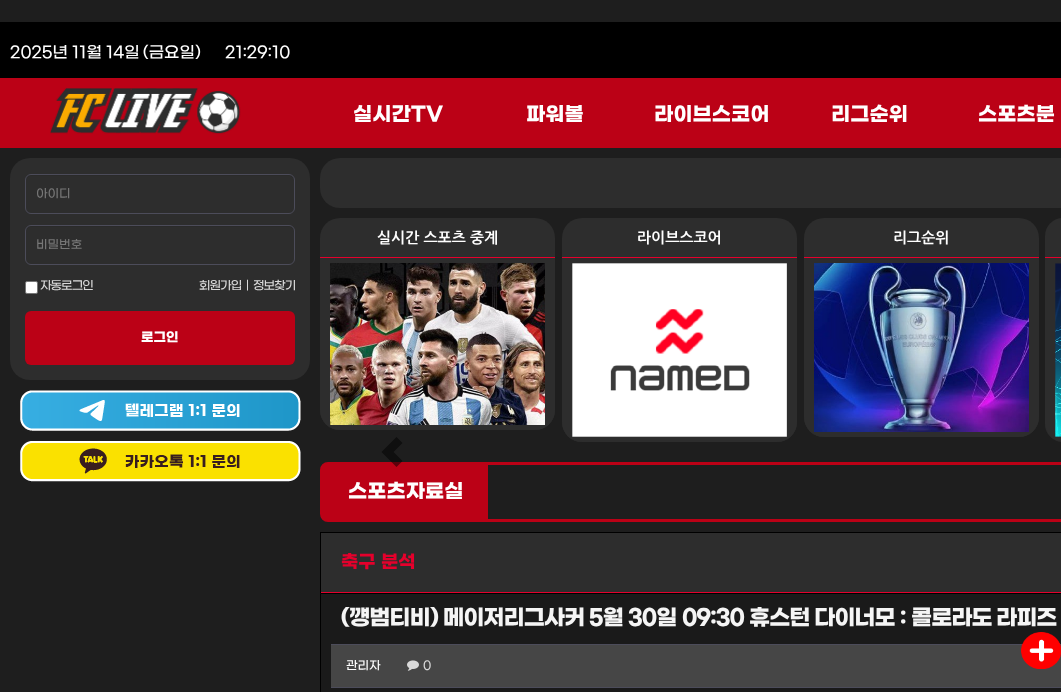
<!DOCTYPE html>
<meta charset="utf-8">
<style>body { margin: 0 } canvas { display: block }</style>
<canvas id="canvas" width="1061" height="692"></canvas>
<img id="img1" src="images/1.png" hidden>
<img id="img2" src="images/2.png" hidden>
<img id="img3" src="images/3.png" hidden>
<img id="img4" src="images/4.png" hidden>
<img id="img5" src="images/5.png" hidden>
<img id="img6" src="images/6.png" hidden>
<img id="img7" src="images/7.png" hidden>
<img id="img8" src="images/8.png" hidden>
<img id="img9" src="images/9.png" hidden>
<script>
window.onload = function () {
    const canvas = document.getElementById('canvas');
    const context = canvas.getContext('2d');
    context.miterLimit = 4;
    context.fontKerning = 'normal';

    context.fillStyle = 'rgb(30, 30, 30)';
    context.fillRect(0, 0, 1061, 692);
    context.fillStyle = 'rgb(187, 1, 22)';
    context.fillRect(0, 78, 1061, 70);
    context.fillStyle = 'rgb(0, 0, 0)';
    context.fillRect(0, 22, 1061, 56);
    context.drawImage(document.getElementById('img1'), 50, 88, 191, 46);
    context.fillStyle = 'rgb(45, 45, 45)';
    context.beginPath();
    context.roundRect(10, 158, 300, 222, 20);
    context.fill();
    context.fillStyle = 'rgb(42, 42, 42)';
    context.beginPath();
    context.moveTo(31, 176);
    context.lineTo(289, 176);
    context.bezierCurveTo(292, 176, 294, 178, 294, 181);
    context.bezierCurveTo(294, 178, 292, 175, 289, 175);
    context.lineTo(31, 175);
    context.bezierCurveTo(28, 175, 26, 178, 26, 181);
    context.bezierCurveTo(26, 178, 28, 176, 31, 176);
    context.closePath();
    context.fill();
    context.beginPath();
    context.roundRect(25.5, 174.5, 269, 39, 5.5);
    context.strokeStyle = 'rgb(76, 76, 90)';
    context.stroke();
    context.beginPath();
    context.moveTo(31, 227);
    context.lineTo(289, 227);
    context.bezierCurveTo(292, 227, 294, 229, 294, 232);
    context.bezierCurveTo(294, 229, 292, 226, 289, 226);
    context.lineTo(31, 226);
    context.bezierCurveTo(28, 226, 26, 229, 26, 232);
    context.bezierCurveTo(26, 229, 28, 227, 31, 227);
    context.closePath();
    context.fill();
    context.beginPath();
    context.roundRect(25.5, 225.5, 269, 39, 5.5);
    context.stroke();
    context.fillStyle = 'rgb(255, 255, 255)';
    context.beginPath();
    context.roundRect(25.5, 281.5, 12, 12, 1.5);
    context.fill();
    context.strokeStyle = 'rgb(118, 118, 118)';
    context.stroke();
    context.fillStyle = 'rgb(187, 1, 22)';
    context.beginPath();
    context.roundRect(25, 311, 270, 54, 6);
    context.fill();
    context.drawImage(document.getElementById('img2'), 20, 390, 281, 41);
    context.drawImage(document.getElementById('img3'), 20, 441, 281, 41);
    context.fillStyle = 'rgb(45, 45, 45)';
    context.beginPath();
    context.roundRect(320, 158, 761, 50, 20);
    context.fill();
    context.beginPath();
    context.roundRect(320, 218, 235, 212, 20);
    context.fill();
    context.fillStyle = 'rgb(229, 0, 44)';
    context.fillRect(320, 257, 235, 1);
    context.fillStyle = 'rgb(45, 45, 45)';
    context.beginPath();
    context.roundRect(320, 258, 235, 172, [0, 0, 20, 20]);
    context.fill();
    context.drawImage(document.getElementById('img4'), 330, 263, 215, 162);
    context.beginPath();
    context.roundRect(562, 218, 235, 224, 20);
    context.fill();
    context.fillStyle = 'rgb(229, 0, 44)';
    context.fillRect(562, 257, 235, 1);
    context.fillStyle = 'rgb(45, 45, 45)';
    context.beginPath();
    context.roundRect(562, 258, 235, 184, [0, 0, 20, 20]);
    context.fill();
    context.drawImage(document.getElementById('img5'), 572, 263, 215, 174);
    context.beginPath();
    context.roundRect(804, 218, 235, 219, 20);
    context.fill();
    context.fillStyle = 'rgb(229, 0, 44)';
    context.fillRect(804, 257, 235, 1);
    context.fillStyle = 'rgb(45, 45, 45)';
    context.beginPath();
    context.roundRect(804, 258, 235, 179, [0, 0, 20, 20]);
    context.fill();
    context.drawImage(document.getElementById('img6'), 814, 263, 215, 169);
    context.beginPath();
    context.roundRect(1045, 218, 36, 224, 20);
    context.fill();
    context.fillStyle = 'rgb(229, 0, 44)';
    context.fillRect(1045, 257, 16, 1);
    context.fillStyle = 'rgb(45, 45, 45)';
    context.beginPath();
    context.moveTo(1045, 258);
    context.lineTo(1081, 258);
    context.lineTo(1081, 422);
    context.bezierCurveTo(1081, 433, 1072, 442, 1061, 442);
    context.lineTo(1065, 442);
    context.bezierCurveTo(1054, 442, 1045, 433, 1045, 422);
    context.closePath();
    context.fill();
    context.drawImage(document.getElementById('img7'), 1055, 263, 6, 174);
    context.beginPath();
    context.roundRect(321.5, 463.5, 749, 57, 6.5);
    context.strokeStyle = 'rgb(187, 1, 22)';
    context.lineWidth = 3;
    context.stroke();
    context.fillStyle = 'rgb(187, 1, 22)';
    context.fillRect(323, 465, 165, 54);
    context.fillStyle = 'rgba(0, 0, 0, 0.5)';
    context.beginPath();
    context.moveTo(381.5, 452);
    context.lineTo(396.5, 467);
    context.lineTo(402.5, 461);
    context.lineTo(393.5, 452);
    context.lineTo(402.5, 443);
    context.lineTo(396.5, 437);
    context.closePath();
    context.fill();
    context.fillStyle = 'rgb(45, 45, 45)';
    context.fillRect(321, 533, 740, 59);
    context.fillStyle = 'rgb(0, 0, 0)';
    context.fillRect(320, 532, 741, 1);
    context.fillStyle = 'rgb(229, 0, 44)';
    context.fillRect(320, 592, 741, 1);
    context.fillStyle = 'rgb(0, 0, 0)';
    context.fillRect(320, 532, 1, 61);
    context.fillStyle = 'rgb(26, 26, 26)';
    context.beginPath();
    context.rect(320.5, 593.5, 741, 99);
    context.fill();
    context.strokeStyle = 'rgb(0, 0, 0)';
    context.lineWidth = 1;
    context.stroke();
    context.fillStyle = 'rgb(76, 76, 90)';
    context.fillRect(331, 644, 730, 1);
    context.fillStyle = 'rgb(70, 70, 70)';
    context.fillRect(331, 645, 730, 42);
    context.fillStyle = 'rgb(76, 76, 90)';
    context.fillRect(331, 687, 730, 1);
    context.drawImage(document.getElementById('img8'), 407, 660, 12, 11);
    context.drawImage(document.getElementById('img9'), 1021, 632, 40, 37);
    context.font = '500 16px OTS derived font';
    context.fillStyle = 'rgb(255, 255, 255)';
    context.fillText('2025년', 10, 57);
    context.fillText('11월', 72, 57);
    context.fillText('14일', 106, 57);
    context.fillText('(금요일)', 143, 57);
    context.fillText('21:29:10', 225, 57);
    context.font = 'bold 20px OTS derived font';
    context.fillText('실시간TV', 353, 120);
    context.fillText('파워볼', 526, 120);
    context.fillText('라이브스코어', 654, 120);
    context.fillText('리그순위', 831, 120);
    context.fillText('스포츠분', 978, 120);
    context.font = '500 12px OTS derived font';
    context.fillStyle = 'rgb(119, 119, 119)';
    context.fillText('아이디', 36, 197);
    context.fillText('비밀번호', 36, 248);
    context.letterSpacing = '-1px';
    context.fillStyle = 'rgb(217, 217, 217)';
    context.fillText('자동로그인', 40, 289);
    context.fillText('회원가입', 199, 289);
    context.fillText('|', 246, 289);
    context.fillText('정보찾기', 253, 289);
    context.letterSpacing = '0px';
    context.font = 'bold 13px OTS derived font';
    context.fillStyle = 'rgb(255, 255, 255)';
    context.fillText('로그인', 141, 341);
    context.font = 'bold 15px NanumGothic';
    context.fillText('실시간 스포츠 중계', 377, 243);
    context.fillText('라이브스코어', 637, 243);
    context.fillText('리그순위', 893, 243);
    context.font = 'bold 20px OTS derived font';
    context.fillText('스포츠자료실', 348, 497);
    context.font = 'bold 18px OTS derived font';
    context.fillStyle = 'rgb(229, 0, 44)';
    context.fillText('축구', 341, 567);
    context.fillText('분석', 381, 567);
    context.letterSpacing = '-1px';
    context.font = 'bold 22px OTS derived font';
    context.fillStyle = 'rgb(245, 245, 245)';
    context.fillText('(꺵범티비)', 341, 624);
    context.fillText('메이저리그사커', 443, 624);
    context.fillText('5월', 589, 624);
    context.fillText('30일', 628, 624);
    context.fillText('09:30', 682, 624);
    context.fillText('휴스턴', 749, 624);
    context.fillText('다이너모', 814, 624);
    context.fillText(':', 900, 624);
    context.fillText('콜로라도', 911, 624);
    context.fillText('라피즈', 996, 624);
    context.letterSpacing = '0px';
    context.font = '500 12px OTS derived font';
    context.fillStyle = 'rgb(255, 255, 255)';
    context.fillText('관리자', 346, 669);
    context.fillStyle = 'rgb(217, 217, 217)';
    context.fillText('0', 423, 669);
};
</script>
